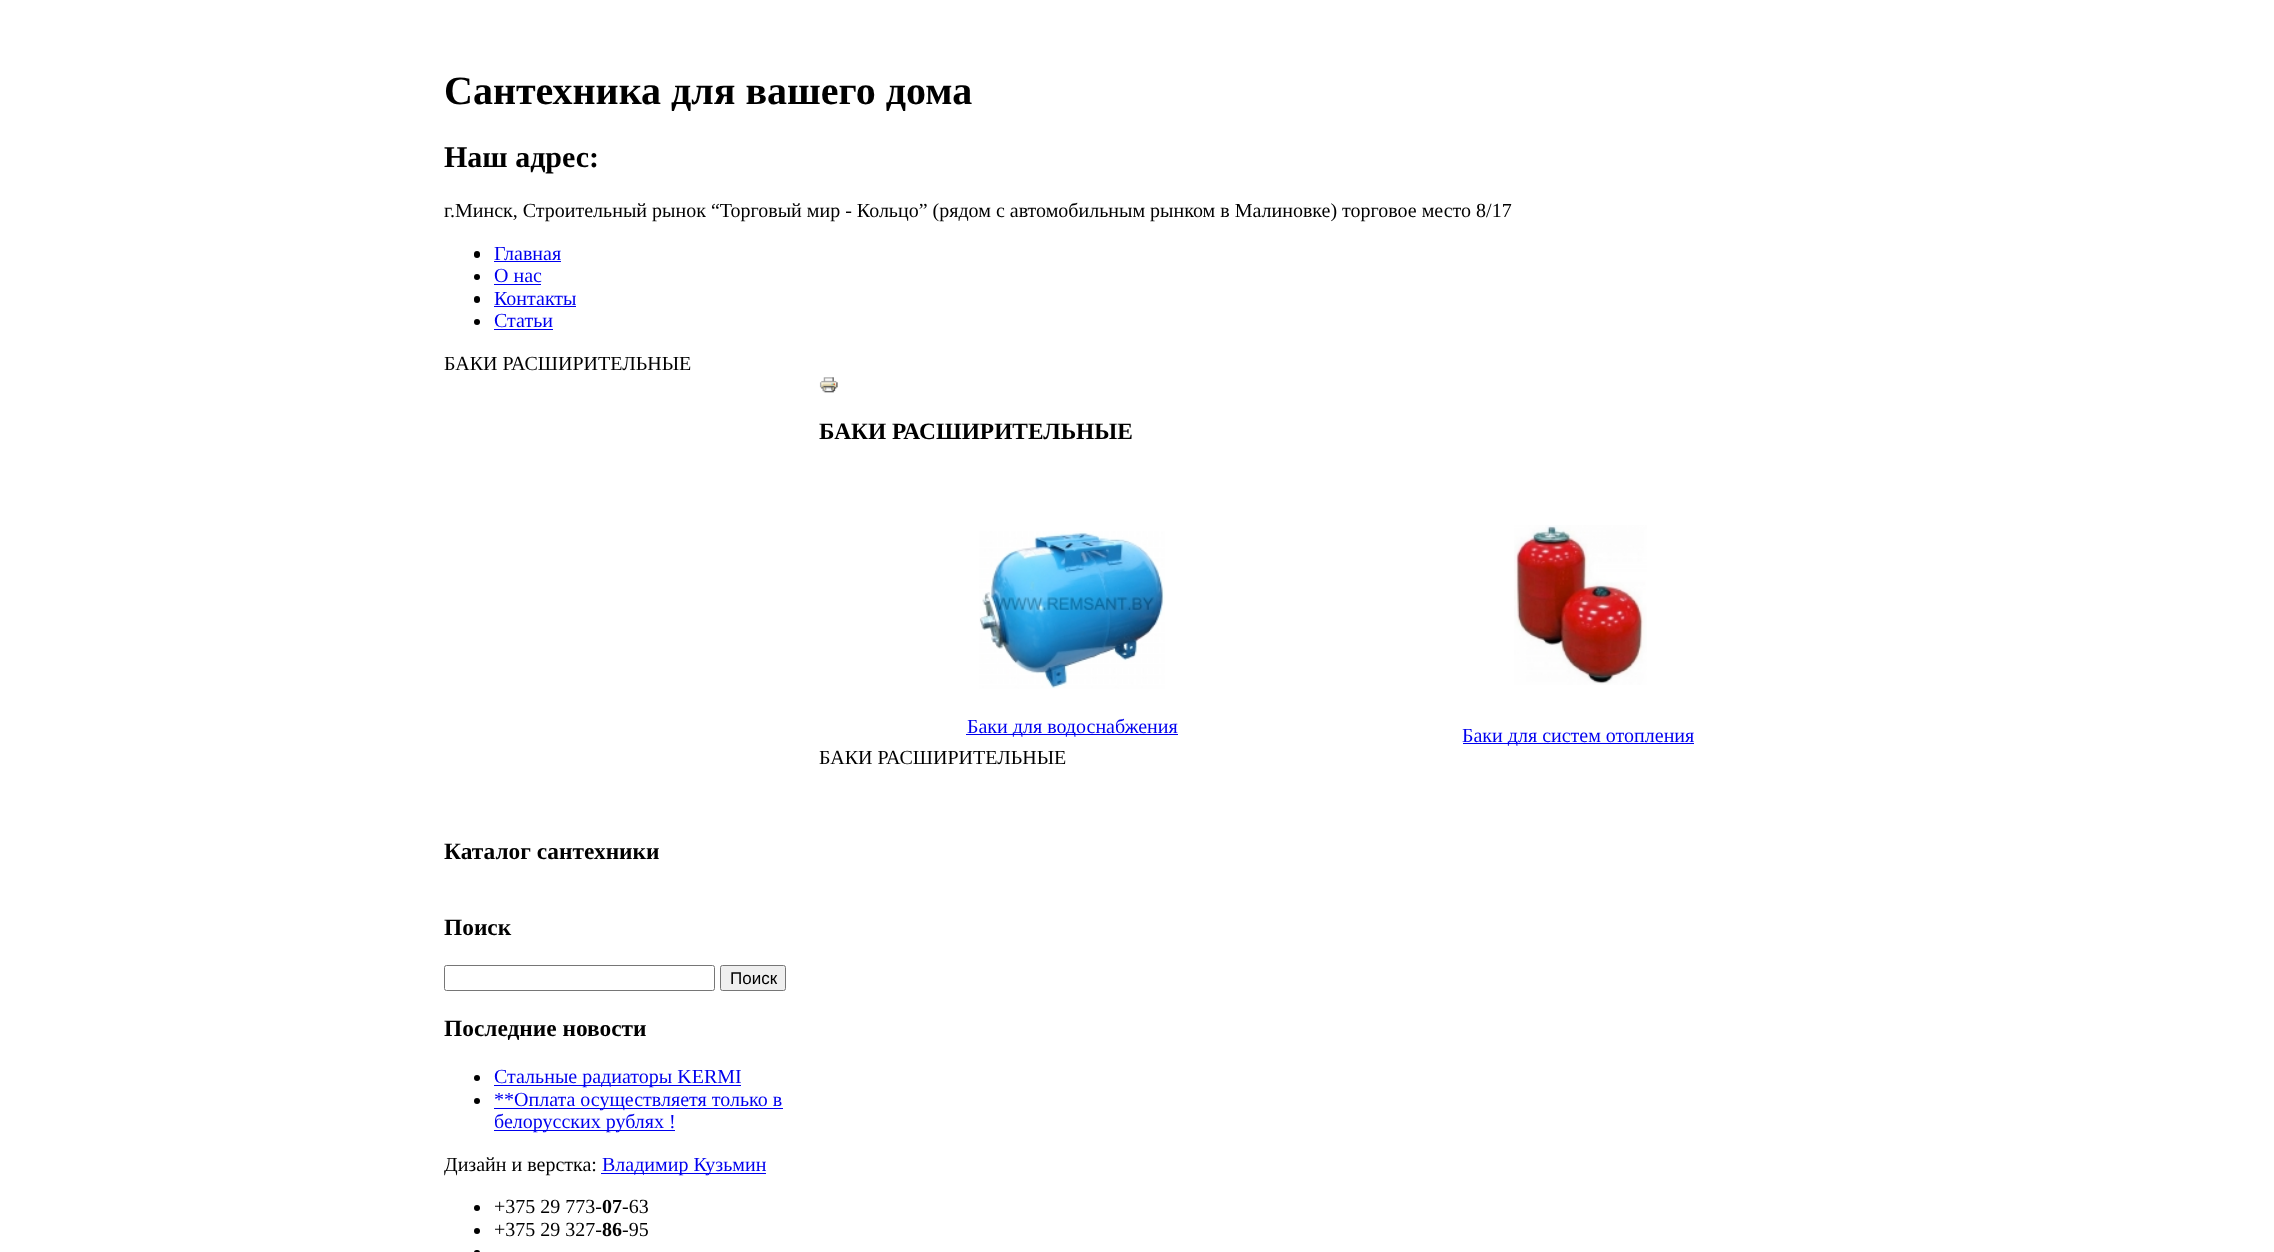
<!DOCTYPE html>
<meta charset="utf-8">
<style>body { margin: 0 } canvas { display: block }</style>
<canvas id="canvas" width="2274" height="1252"></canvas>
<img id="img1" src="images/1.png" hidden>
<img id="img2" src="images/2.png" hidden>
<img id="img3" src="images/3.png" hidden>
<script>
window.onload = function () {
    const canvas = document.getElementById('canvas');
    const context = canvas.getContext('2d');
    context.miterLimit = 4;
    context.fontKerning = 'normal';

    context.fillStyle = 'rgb(255, 255, 255)';
    context.fillRect(0, 0, 2274, 1252);
    context.fillStyle = 'rgb(0, 0, 0)';
    context.beginPath();
    context.roundRect(474, 251, 6, 7, 3);
    context.fill();
    context.fillStyle = 'rgb(0, 0, 238)';
    context.fillRect(494, 261, 67, 1);
    context.fillStyle = 'rgb(0, 0, 0)';
    context.beginPath();
    context.arc(477, 277, 3, 0, 2 * Math.PI);
    context.fill();
    context.fillStyle = 'rgb(0, 0, 238)';
    context.fillRect(494, 284, 47, 1);
    context.fillStyle = 'rgb(0, 0, 0)';
    context.beginPath();
    context.roundRect(474, 296, 6, 7, 3);
    context.fill();
    context.fillStyle = 'rgb(0, 0, 238)';
    context.fillRect(494, 306, 82, 1);
    context.fillStyle = 'rgb(0, 0, 0)';
    context.beginPath();
    context.arc(477, 322, 3, 0, 2 * Math.PI);
    context.fill();
    context.fillStyle = 'rgb(0, 0, 238)';
    context.fillRect(494, 329, 59, 1);
    context.drawImage(document.getElementById('img1'), 819, 377, 19, 16);
    context.drawImage(document.getElementById('img2'), 979, 531, 186, 158);
    context.fillRect(966, 734, 212, 1);
    context.drawImage(document.getElementById('img3'), 1514, 525, 133, 160);
    context.fillRect(1463, 743, 231, 1);
    context.beginPath();
    context.roundRect(444.5, 965.5, 270, 25, 2);
    context.strokeStyle = 'rgb(118, 118, 118)';
    context.stroke();
    context.fillStyle = 'rgb(239, 239, 239)';
    context.beginPath();
    context.roundRect(720.5, 965.5, 65, 25, 2);
    context.fill();
    context.stroke();
    context.fillStyle = 'rgb(0, 0, 0)';
    context.beginPath();
    context.arc(477, 1078, 3, 0, 2 * Math.PI);
    context.fill();
    context.fillStyle = 'rgb(0, 0, 238)';
    context.fillRect(494, 1085, 247, 1);
    context.fillStyle = 'rgb(0, 0, 0)';
    context.beginPath();
    context.arc(477, 1101, 3, 0, 2 * Math.PI);
    context.fill();
    context.fillStyle = 'rgb(0, 0, 238)';
    context.fillRect(494, 1108, 289, 1);
    context.fillRect(494, 1130, 181, 1);
    context.fillRect(601, 1173, 165, 1);
    context.fillStyle = 'rgb(0, 0, 0)';
    context.beginPath();
    context.arc(477, 1208, 3, 0, 2 * Math.PI);
    context.fill();
    context.beginPath();
    context.arc(477, 1231, 3, 0, 2 * Math.PI);
    context.fill();
    context.beginPath();
    context.roundRect(474, 1250, 6, 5, 3);
    context.fill();
    context.font = 'bold 40px Liberation Serif';
    context.fillText('Сантехника для вашего дома', 444, 104);
    context.font = 'bold 30px Liberation Serif';
    context.fillText('Наш адрес:', 444, 167);
    context.font = '20px Liberation Serif';
    context.fillText('г.Минск, Строительный рынок “Торговый мир - Кольцо” (рядом с автомобильным рынком в Малиновке) торговое место 8/17', 444, 217);
    context.fillStyle = 'rgb(0, 0, 238)';
    context.fillText('Главная', 494, 260);
    context.fillText('О нас', 494, 282);
    context.fillText('Контакты', 494, 305);
    context.fillText('Статьи', 494, 327);
    context.fillStyle = 'rgb(0, 0, 0)';
    context.fillText('БАКИ РАСШИРИТЕЛЬНЫЕ', 444, 370);
    context.font = 'bold 23.4px Liberation Serif';
    context.fillText('БАКИ РАСШИРИТЕЛЬНЫЕ', 819, 439);
    context.font = '20px Liberation Serif';
    context.fillStyle = 'rgb(0, 0, 238)';
    context.fillText('Баки для водоснабжения', 967, 733);
    context.fillText('Баки для систем отопления', 1462, 742);
    context.fillStyle = 'rgb(0, 0, 0)';
    context.fillText('БАКИ РАСШИРИТЕЛЬНЫЕ', 819, 764);
    context.font = 'bold 23.4px Liberation Serif';
    context.fillText('Каталог сантехники', 444, 859);
    context.fillText('Поиск', 444, 935);
    context.font = '17px Liberation Sans';
    context.fillText('Поиск', 730, 984);
    context.font = 'bold 23.4px Liberation Serif';
    context.fillText('Последние новости', 444, 1036);
    context.font = '20px Liberation Serif';
    context.fillStyle = 'rgb(0, 0, 238)';
    context.fillText('Стальные радиаторы KERMI', 494, 1083);
    context.fillText('**Оплата осуществляетя только в', 494, 1106);
    context.fillText('белорусских рублях !', 494, 1128);
    context.fillStyle = 'rgb(0, 0, 0)';
    context.fillText('Дизайн и верстка:', 444, 1171);
    context.fillStyle = 'rgb(0, 0, 238)';
    context.fillText('Владимир Кузьмин', 602, 1171);
    context.fillStyle = 'rgb(0, 0, 0)';
    context.fillText('+375 29 773-', 494, 1213);
    context.font = 'bold 20px Liberation Serif';
    context.fillText('07', 602, 1213);
    context.font = '20px Liberation Serif';
    context.fillText('-63', 622, 1213);
    context.fillText('+375 29 327-', 494, 1236);
    context.font = 'bold 20px Liberation Serif';
    context.fillText('86', 602, 1236);
    context.font = '20px Liberation Serif';
    context.fillText('-95', 622, 1236);
};
</script>
